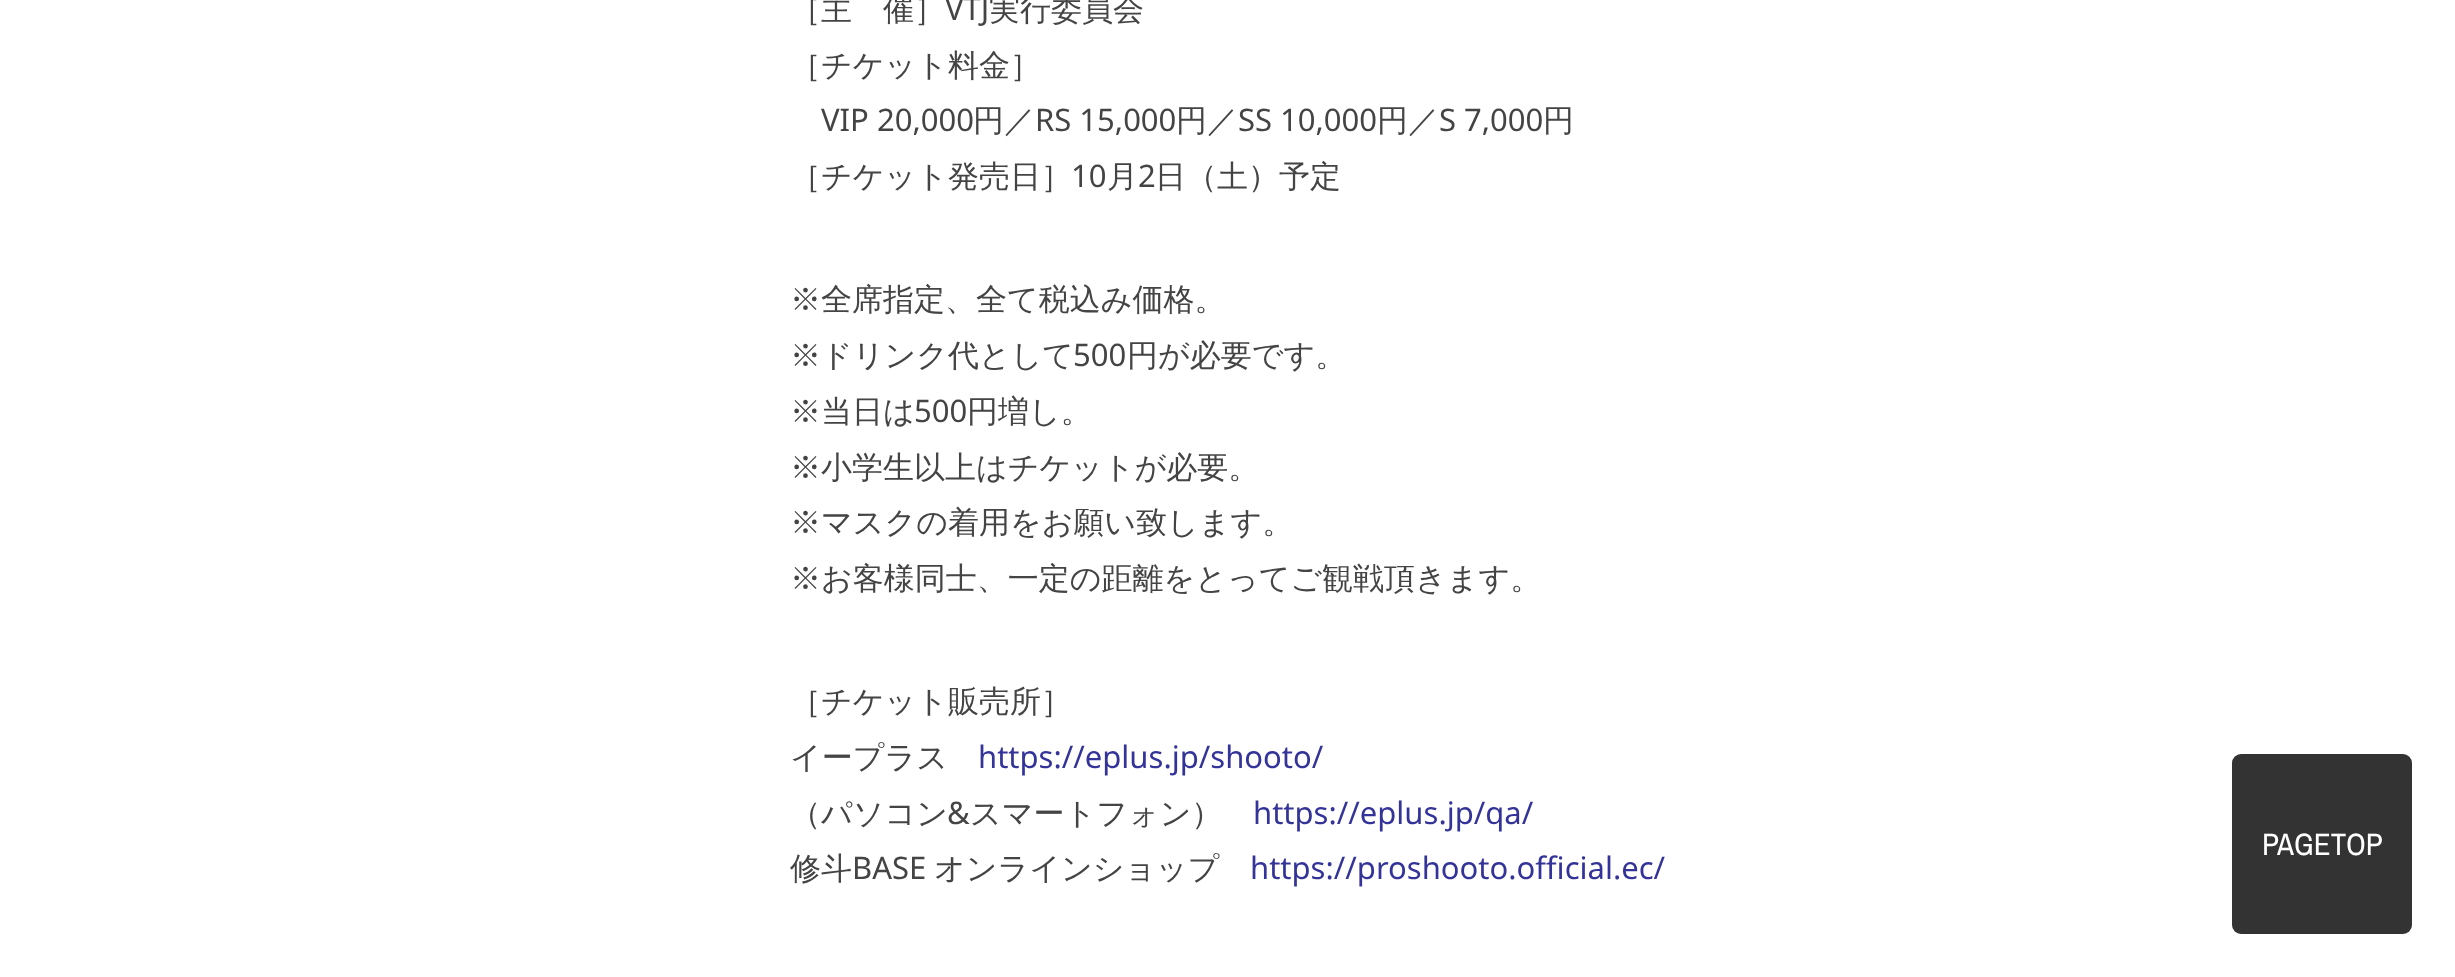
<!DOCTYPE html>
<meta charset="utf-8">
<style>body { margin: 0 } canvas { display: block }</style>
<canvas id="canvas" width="2455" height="977"></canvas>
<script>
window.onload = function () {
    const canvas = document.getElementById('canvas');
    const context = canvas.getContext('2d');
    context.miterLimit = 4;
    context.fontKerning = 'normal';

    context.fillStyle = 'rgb(255, 255, 255)';
    context.fillRect(0, 0, 2455, 977);
    context.fillStyle = 'rgb(51, 51, 51)';
    context.beginPath();
    context.roundRect(2232, 754, 180, 180, 9);
    context.fill();
    context.font = '500 31px WenQuanYi Zen Hei';
    context.fillStyle = 'rgb(68, 68, 68)';
    context.fillText('［主　催］', 790, 20);
    context.font = '31px Noto Sans';
    context.fillText('VTJ', 945, 20);
    context.font = '500 31px WenQuanYi Zen Hei';
    context.fillText('実行委員会', 989, 20);
    context.fillText('［チケット料金］', 790, 76);
    context.font = '31px Noto Sans';
    context.fillText('VIP 20,000', 821, 131);
    context.font = '500 31px WenQuanYi Zen Hei';
    context.fillText('円／', 973, 131);
    context.font = '31px Noto Sans';
    context.fillText('RS 15,000', 1035, 131);
    context.font = '500 31px WenQuanYi Zen Hei';
    context.fillText('円／', 1176, 131);
    context.font = '31px Noto Sans';
    context.fillText('SS 10,000', 1238, 131);
    context.font = '500 31px WenQuanYi Zen Hei';
    context.fillText('円／', 1377, 131);
    context.font = '31px Noto Sans';
    context.fillText('S 7,000', 1439, 131);
    context.font = '500 31px WenQuanYi Zen Hei';
    context.fillText('円', 1543, 131);
    context.fillText('［チケット発売日］', 790, 187);
    context.font = '31px Noto Sans';
    context.fillText('10', 1071, 187);
    context.font = '500 31px WenQuanYi Zen Hei';
    context.fillText('月', 1107, 187);
    context.font = '31px Noto Sans';
    context.fillText('2', 1138, 187);
    context.font = '500 31px WenQuanYi Zen Hei';
    context.fillText('日（土）予定', 1155, 187);
    context.fillText('※全席指定、全て税込み価格。', 790, 310);
    context.fillText('※ドリンク代として', 790, 366);
    context.font = '31px Noto Sans';
    context.fillText('500', 1073, 366);
    context.font = '500 31px WenQuanYi Zen Hei';
    context.fillText('円が必要です。', 1127, 366);
    context.fillText('※当日は', 790, 422);
    context.font = '31px Noto Sans';
    context.fillText('500', 914, 422);
    context.font = '500 31px WenQuanYi Zen Hei';
    context.fillText('円増し。', 967, 422);
    context.fillText('※小学生以上はチケットが必要。', 790, 478);
    context.fillText('※マスクの着用をお願い致します。', 790, 533);
    context.fillText('※お客様同士、一定の距離をとってご観戦頂きます。', 790, 589);
    context.fillText('［チケット販売所］', 790, 712);
    context.fillText('イープラス', 790, 768);
    context.font = '31px Noto Sans';
    context.fillStyle = 'rgb(51, 51, 153)';
    context.fillText('https://eplus.jp/shooto/', 978, 768);
    context.font = '500 31px WenQuanYi Zen Hei';
    context.fillStyle = 'rgb(68, 68, 68)';
    context.fillText('（パソコン', 790, 824);
    context.font = '31px Noto Sans';
    context.fillText('&', 947, 824);
    context.font = '500 31px WenQuanYi Zen Hei';
    context.fillText('スマートフォン）', 970, 824);
    context.font = '31px Noto Sans';
    context.fillStyle = 'rgb(51, 51, 153)';
    context.fillText('https://eplus.jp/qa/', 1253, 824);
    context.font = '500 31px WenQuanYi Zen Hei';
    context.fillStyle = 'rgb(68, 68, 68)';
    context.fillText('修斗', 790, 879);
    context.font = '31px Noto Sans';
    context.fillText('BASE', 852, 879);
    context.font = '500 31px WenQuanYi Zen Hei';
    context.fillText('オンラインショップ', 934, 879);
    context.font = '31px Noto Sans';
    context.fillStyle = 'rgb(51, 51, 153)';
    context.fillText('https://proshooto.official.ec/', 1250, 879);
    context.font = '31px Archivo Narrow';
    context.fillStyle = 'rgb(255, 255, 255)';
    context.fillText('PAGETOP', 2262, 855);
};
</script>
